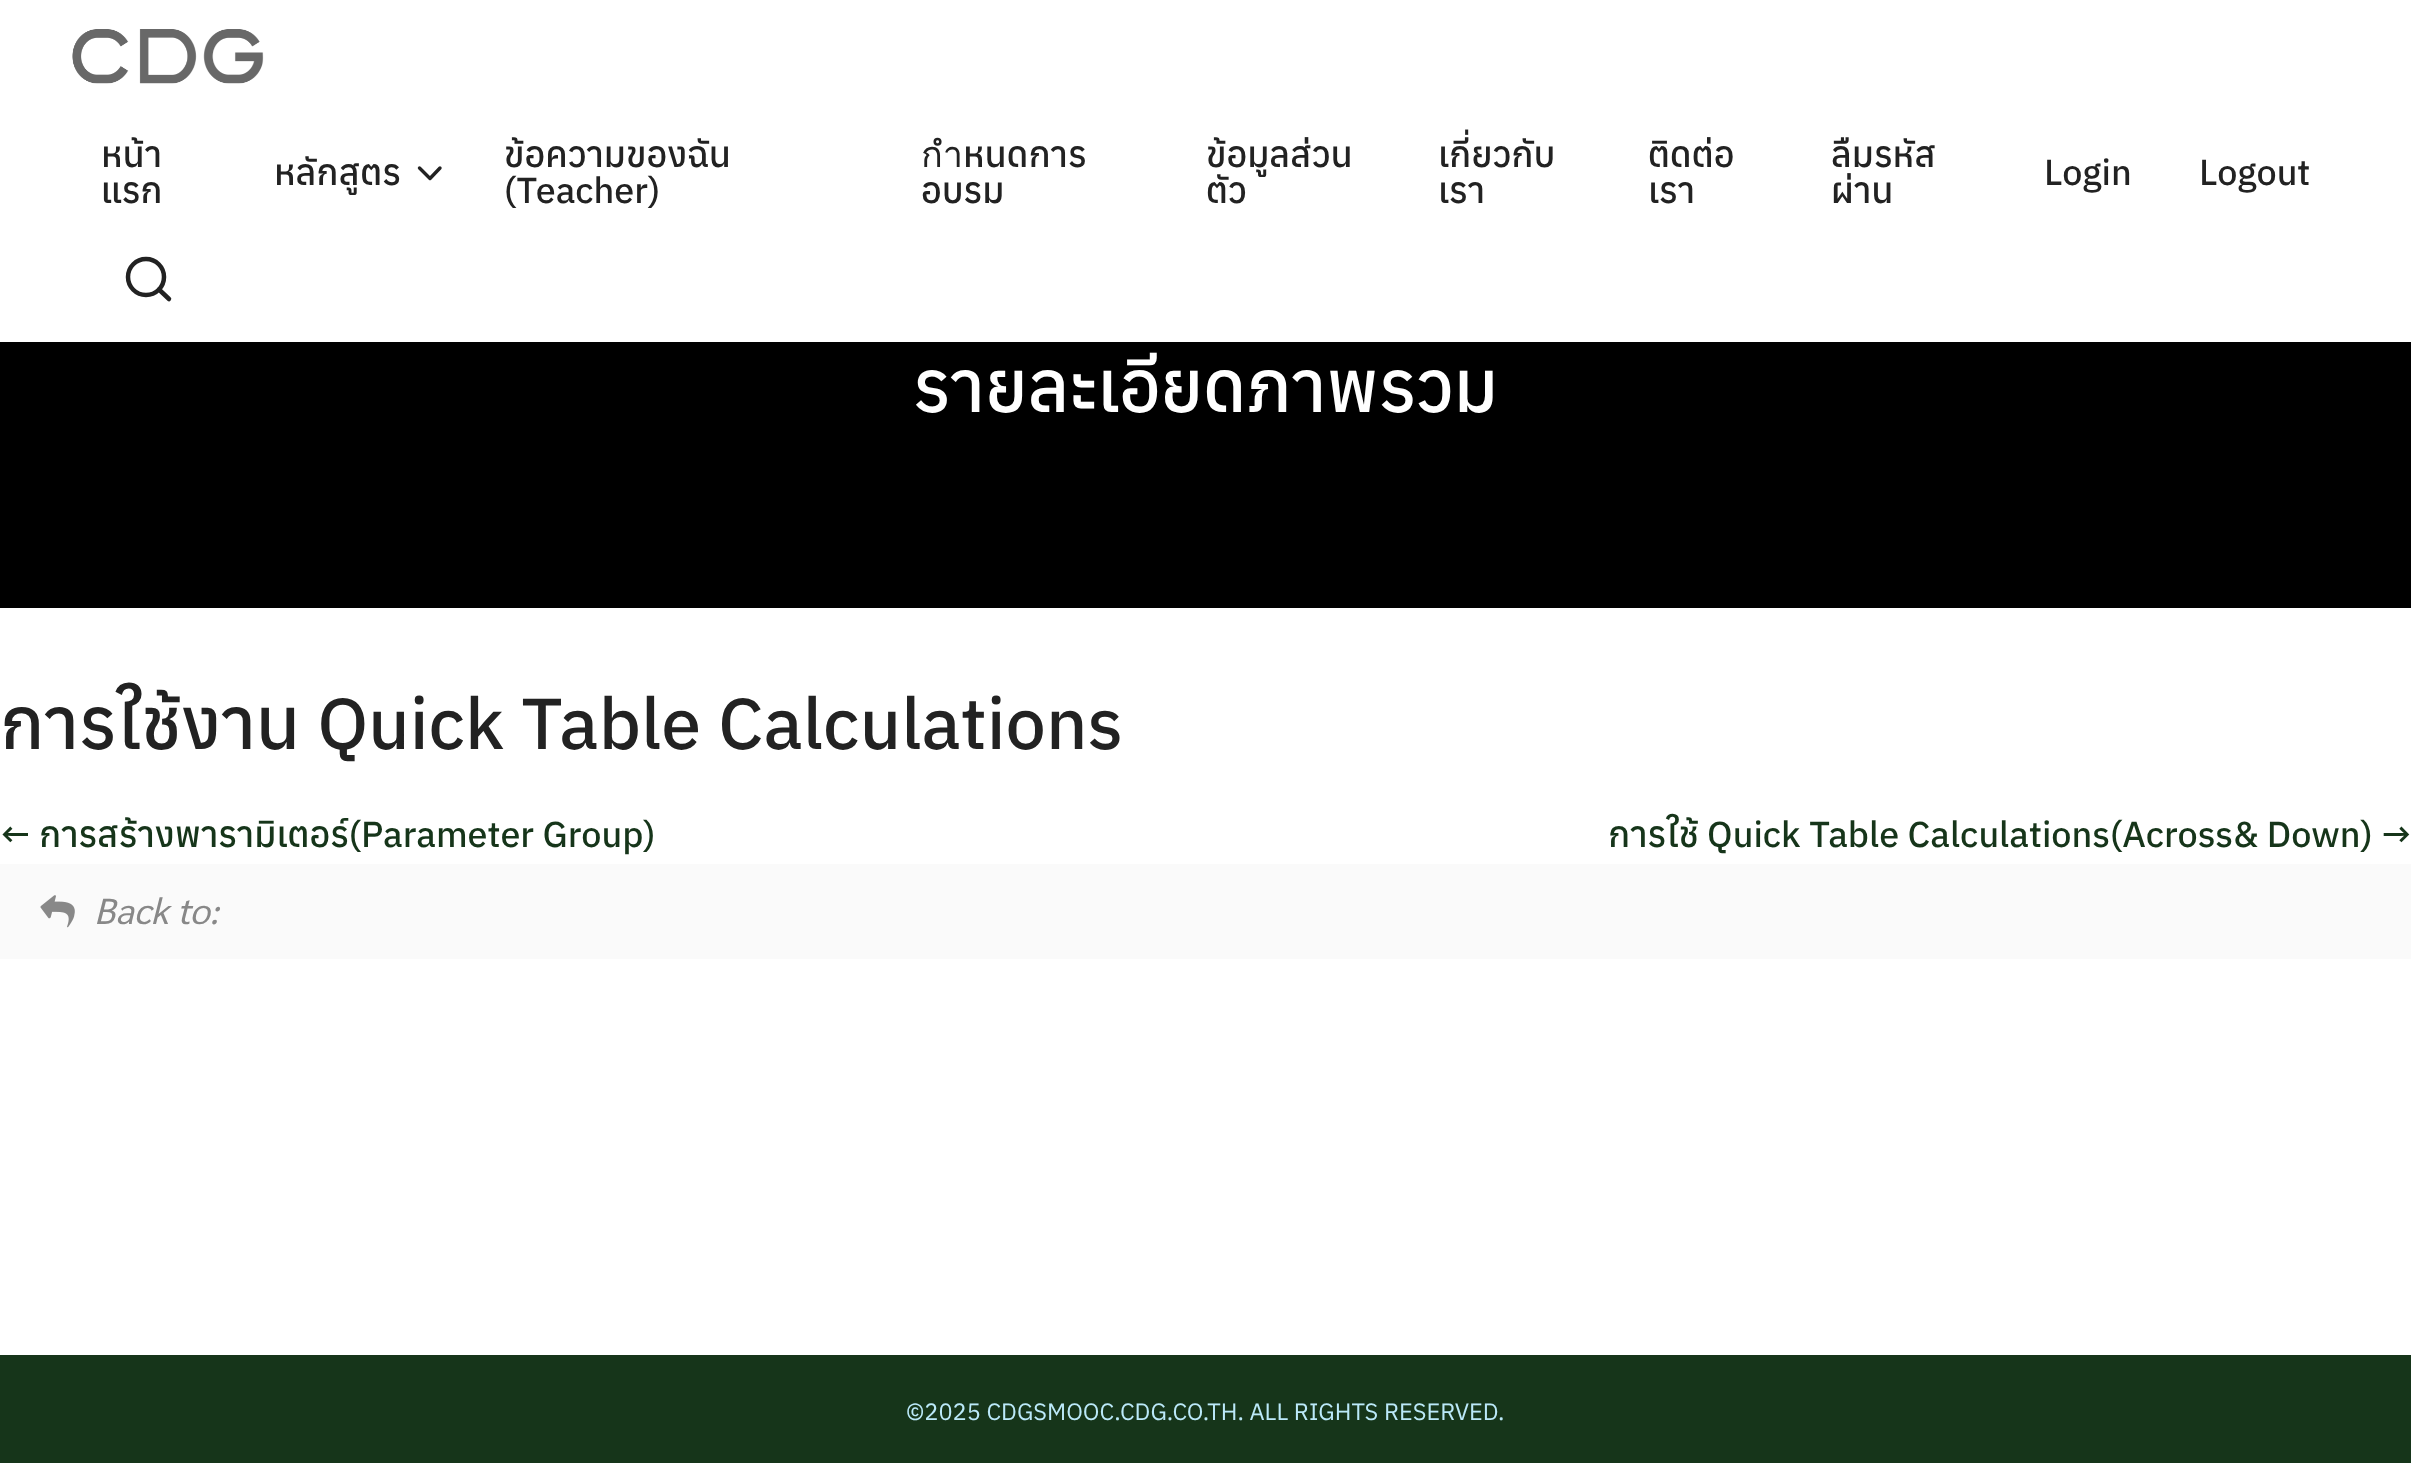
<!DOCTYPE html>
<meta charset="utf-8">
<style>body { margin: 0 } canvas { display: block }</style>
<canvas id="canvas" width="2411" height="1463"></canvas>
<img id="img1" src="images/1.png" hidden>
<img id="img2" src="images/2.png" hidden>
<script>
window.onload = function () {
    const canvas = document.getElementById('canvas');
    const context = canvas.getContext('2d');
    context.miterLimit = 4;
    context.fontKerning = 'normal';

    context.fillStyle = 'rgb(255, 255, 255)';
    context.fillRect(0, 0, 2411, 1463);
    context.drawImage(document.getElementById('img1'), 72, 29, 192, 55);
    context.beginPath();
    context.moveTo(419.5, 168);
    context.lineTo(430, 178.5);
    context.lineTo(440, 168);
    context.strokeStyle = 'rgb(34, 34, 34)';
    context.lineWidth = 3.4;
    context.lineCap = 'round';
    context.lineJoin = 'round';
    context.stroke();
    context.beginPath();
    context.arc(146, 277, 18, 0, 2 * Math.PI);
    context.lineWidth = 4.5;
    context.stroke();
    context.beginPath();
    context.moveTo(169, 299);
    context.lineTo(159, 289.5);
    context.stroke();
    context.fillStyle = 'rgb(0, 0, 0)';
    context.fillRect(0, 342, 2411, 266);
    context.fillStyle = 'rgb(250, 250, 250)';
    context.fillRect(0, 864, 2411, 95);
    context.drawImage(document.getElementById('img2'), 40, 895, 35, 33);
    context.fillStyle = 'rgb(22, 53, 26)';
    context.fillRect(0, 1355, 2411, 108);
    context.font = '500 36px Anuphan';
    context.fillStyle = 'rgb(34, 34, 34)';
    context.fillText('หน้า', 101, 167);
    context.fillText('แรก', 101, 203);
    context.fillText('หลักสูตร', 274, 185);
    context.fillText('ข้อความของฉัน', 504, 167);
    context.fillText('(Teacher)', 504, 203);
    context.fillText('กำหนดการ', 921, 167);
    context.fillText('อบรม', 921, 203);
    context.fillText('ข้อมูลส่วน', 1206, 167);
    context.fillText('ตัว', 1206, 203);
    context.fillText('เกี่ยวกับ', 1438, 167);
    context.fillText('เรา', 1438, 203);
    context.fillText('ติดต่อ', 1648, 167);
    context.fillText('เรา', 1648, 203);
    context.fillText('ลืมรหัส', 1831, 167);
    context.fillText('ผ่าน', 1831, 203);
    context.fillText('Login', 2044, 185);
    context.fillText('Logout', 2199, 185);
    context.font = '500 72px Anuphan';
    context.fillStyle = 'rgb(255, 255, 255)';
    context.fillText('รายละเอียดภาพรวม', 913, 412);
    context.fillStyle = 'rgb(34, 34, 34)';
    context.fillText('การใช้งาน Quick Table Calculations', 0, 749);
    context.font = '500 36px Anuphan';
    context.fillStyle = 'rgb(22, 53, 26)';
    context.fillText('← การสร้างพารามิเตอร์(Parameter Group)', 0, 847);
    context.fillText('การใช้ Quick Table Calculations(Across& Down) →', 1608, 847);
    context.font = 'italic 36px Sarabun';
    context.fillStyle = 'rgb(136, 136, 136)';
    context.fillText('Back to:', 94, 924);
    context.font = '23.6px Anuphan';
    context.fillStyle = 'rgb(187, 233, 249)';
    context.fillText('©2025 CDGSMOOC.CDG.CO.TH. ALL RIGHTS RESERVED.', 906, 1420);
};
</script>
